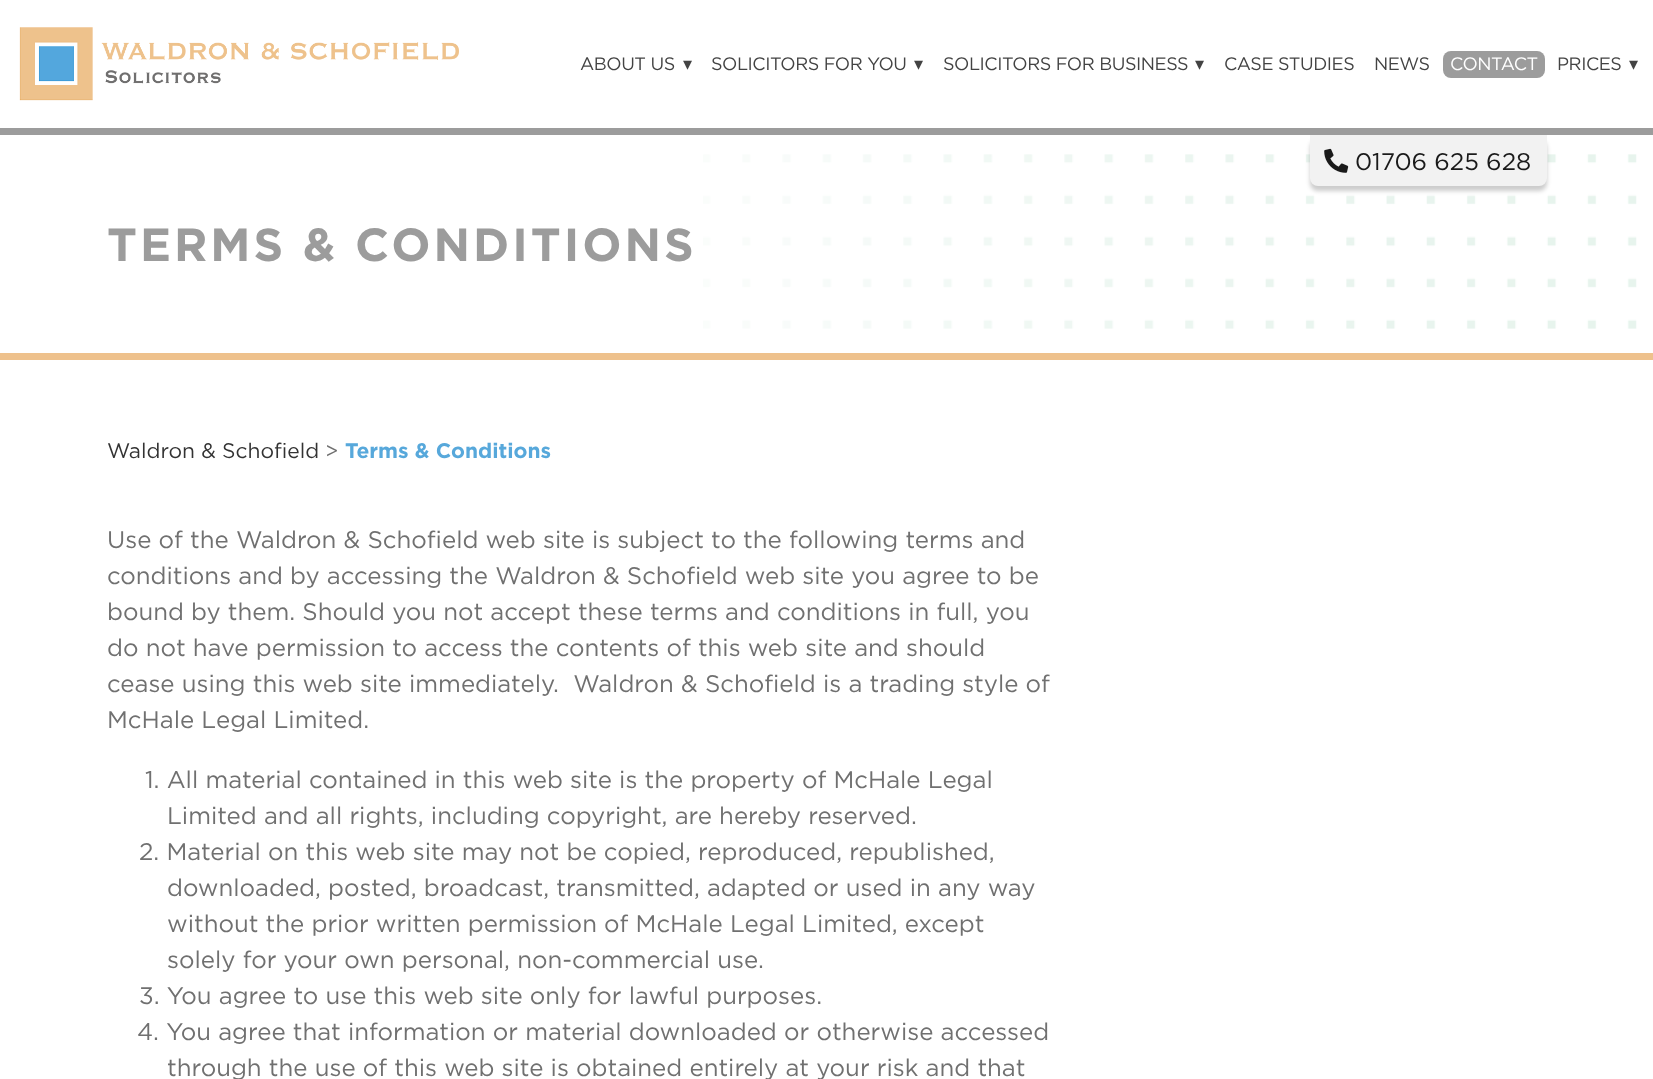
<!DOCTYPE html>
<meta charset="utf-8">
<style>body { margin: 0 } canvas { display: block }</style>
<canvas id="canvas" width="1653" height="1079"></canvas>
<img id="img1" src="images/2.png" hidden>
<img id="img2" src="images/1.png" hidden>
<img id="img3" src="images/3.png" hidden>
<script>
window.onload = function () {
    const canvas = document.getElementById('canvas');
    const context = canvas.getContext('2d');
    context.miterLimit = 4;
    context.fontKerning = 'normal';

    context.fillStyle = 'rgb(255, 255, 255)';
    context.fillRect(0, 0, 1653, 1079);
    context.drawImage(document.getElementById('img1'), 703, 154, 934, 175);
    context.fillStyle = 'rgba(0, 0, 0, 0.2)';
    context.filter = 'blur(2px)';
    context.beginPath();
    context.roundRect(1310, 140, 237, 51, 8);
    context.fill();
    context.filter = 'none';
    context.fillStyle = 'rgb(156, 156, 156)';
    context.fillRect(0, 128, 1653, 7);
    context.drawImage(document.getElementById('img2'), 19, 27, 440, 74);
    context.beginPath();
    context.roundRect(1443, 51, 102, 27, 8);
    context.fill();
    context.fillStyle = 'rgb(238, 193, 140)';
    context.fillRect(0, 353, 1653, 7);
    context.fillStyle = 'rgb(242, 242, 242)';
    context.beginPath();
    context.roundRect(1310, 135, 237, 51, [0, 0, 8, 8]);
    context.fill();
    context.drawImage(document.getElementById('img3'), 1324, 148, 25, 25);
    context.letterSpacing = '-0.45px';
    context.font = '18px Gotham';
    context.fillStyle = 'rgb(67, 67, 67)';
    context.fillText('ABOUT US', 580, 70);
    context.font = '18px DejaVu Sans';
    context.fillText('▾', 683, 70);
    context.font = '18px Gotham';
    context.fillText('SOLICITORS FOR YOU', 711, 70);
    context.font = '18px DejaVu Sans';
    context.fillText('▾', 914, 70);
    context.font = '18px Gotham';
    context.fillText('SOLICITORS FOR BUSINESS', 943, 70);
    context.font = '18px DejaVu Sans';
    context.fillText('▾', 1195, 70);
    context.font = '18px Gotham';
    context.fillText('CASE STUDIES', 1224, 70);
    context.fillText('NEWS', 1374, 70);
    context.fillStyle = 'rgb(255, 255, 255)';
    context.fillText('CONTACT', 1450, 70);
    context.fillStyle = 'rgb(67, 67, 67)';
    context.fillText('PRICES', 1557, 70);
    context.font = '18px DejaVu Sans';
    context.fillText('▾', 1629, 70);
    context.letterSpacing = '0px';
    context.font = '24px Gotham';
    context.fillStyle = 'rgb(26, 26, 26)';
    context.fillText('01706 625 628', 1355, 170);
    context.letterSpacing = '3px';
    context.font = 'bold 46.25px Gotham';
    context.fillStyle = 'rgb(156, 156, 156)';
    context.fillText('TERMS & CONDITIONS', 107, 261);
    context.letterSpacing = '0px';
    context.font = '21px Gotham';
    context.fillStyle = 'rgb(51, 51, 51)';
    context.fillText('Waldron & Schofield', 107, 458);
    context.fillStyle = 'rgb(112, 112, 112)';
    context.fillText('>', 325, 458);
    context.font = 'bold 21px Gotham';
    context.fillStyle = 'rgb(87, 168, 219)';
    context.fillText('Terms & Conditions', 345, 458);
    context.font = '24px Gotham';
    context.fillStyle = 'rgb(112, 112, 112)';
    context.fillText('Use of the Waldron & Schofield web site is subject to the following terms and', 107, 548);
    context.fillText('conditions and by accessing the Waldron & Schofield web site you agree to be', 107, 584);
    context.fillText('bound by them. Should you not accept these terms and conditions in full, you', 107, 620);
    context.fillText('do not have permission to access the contents of this web site and should', 107, 656);
    context.fillText('cease using this web site immediately.  Waldron & Schofield is a trading style of', 107, 692);
    context.fillText('McHale Legal Limited.', 107, 728);
    context.fillText('1. All material contained in this web site is the property of McHale Legal', 145, 788);
    context.fillText('Limited and all rights, including copyright, are hereby reserved.', 167, 824);
    context.fillText('2. Material on this web site may not be copied, reproduced, republished,', 139, 860);
    context.fillText('downloaded, posted, broadcast, transmitted, adapted or used in any way', 167, 896);
    context.fillText('without the prior written permission of McHale Legal Limited, except', 167, 932);
    context.fillText('solely for your own personal, non-commercial use.', 167, 968);
    context.fillText('3. You agree to use this web site only for lawful purposes.', 139, 1004);
    context.fillText('4. You agree that information or material downloaded or otherwise accessed', 137, 1040);
    context.fillText('through the use of this web site is obtained entirely at your risk and that', 167, 1076);
};
</script>
